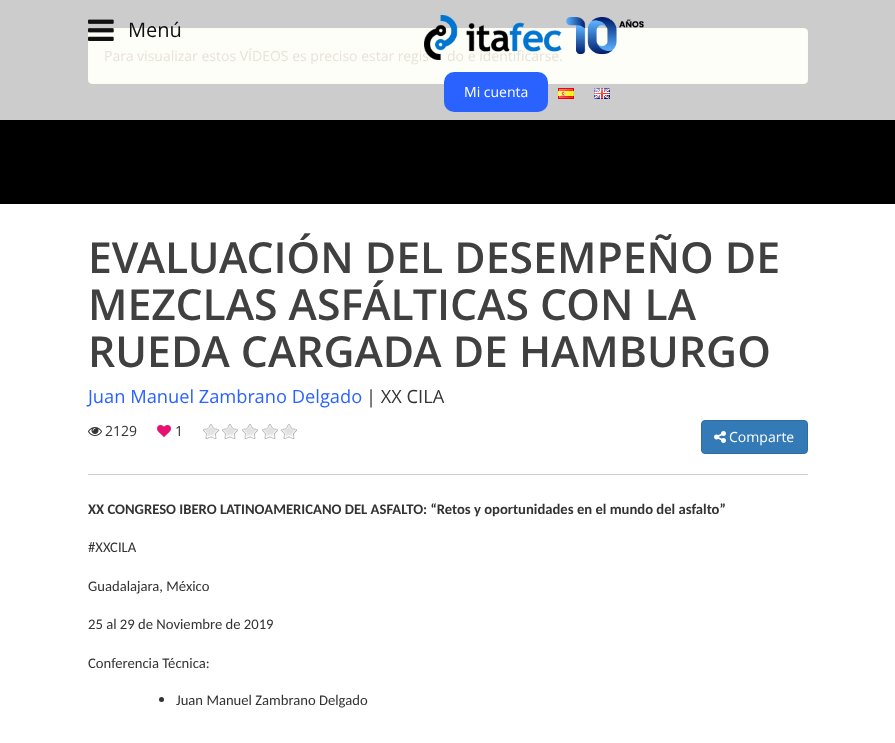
<!DOCTYPE html>
<meta charset="utf-8">
<style>body { margin: 0 } canvas { display: block }</style>
<canvas id="canvas" width="895" height="743"></canvas>
<img id="img1" src="images/1.png" hidden>
<img id="img2" src="images/3.png" hidden>
<img id="img3" src="images/4.png" hidden>
<img id="img4" src="images/5.png" hidden>
<img id="img5" src="images/6.png" hidden>
<img id="img6" src="images/7.png" hidden>
<img id="img7" src="images/8.png" hidden>
<img id="img8" src="images/2.png" hidden>
<script>
window.onload = function () {
    const canvas = document.getElementById('canvas');
    const context = canvas.getContext('2d');
    context.miterLimit = 4;
    context.fontKerning = 'normal';

    context.fillStyle = 'rgb(255, 255, 255)';
    context.fillRect(0, 0, 895, 743);
    context.fillStyle = 'rgb(204, 204, 204)';
    context.fillRect(0, 0, 895, 120);
    context.fillStyle = 'rgb(254, 254, 249)';
    context.beginPath();
    context.roundRect(88.5, 28.5, 719, 55, 3.5);
    context.fill();
    context.strokeStyle = 'rgb(254, 251, 245)';
    context.stroke();
    context.drawImage(document.getElementById('img1'), 88, 19, 26, 22);
    context.fillStyle = 'rgb(41, 98, 255)';
    context.beginPath();
    context.roundRect(444, 72, 104, 40, 10);
    context.fill();
    context.drawImage(document.getElementById('img2'), 558, 88, 16, 11);
    context.drawImage(document.getElementById('img3'), 594, 88, 16, 11);
    context.fillStyle = 'rgb(0, 0, 0)';
    context.fillRect(0, 120, 895, 84);
    context.drawImage(document.getElementById('img4'), 88, 427, 14, 9);
    context.drawImage(document.getElementById('img5'), 157, 425, 14, 12);
    context.drawImage(document.getElementById('img6'), 203, 424, 16, 15);
    context.drawImage(document.getElementById('img6'), 222, 424, 16, 15);
    context.drawImage(document.getElementById('img6'), 242, 424, 16, 15);
    context.drawImage(document.getElementById('img6'), 262, 424, 16, 15);
    context.drawImage(document.getElementById('img6'), 281, 424, 16, 15);
    context.fillStyle = 'rgb(51, 122, 183)';
    context.beginPath();
    context.roundRect(701.5, 420.5, 106, 33, 3.5);
    context.fill();
    context.strokeStyle = 'rgb(46, 109, 164)';
    context.stroke();
    context.drawImage(document.getElementById('img7'), 714, 431, 12, 12);
    context.fillStyle = 'rgb(204, 204, 204)';
    context.fillRect(88, 474, 720, 1);
    context.fillStyle = 'rgb(51, 51, 51)';
    context.beginPath();
    context.arc(161.5, 699.5, 2.5, 0, 2 * Math.PI);
    context.fill();
    context.font = '20px Open Sans';
    context.fillStyle = 'rgb(17, 17, 17)';
    context.fillText('Menú', 128, 37);
    context.font = '14px Open Sans';
    context.fillStyle = 'rgb(255, 255, 255)';
    context.fillText('Mi cuenta', 464, 97);
    context.fillStyle = 'rgb(232, 226, 216)';
    context.fillText('Para visualizar estos VÍDEOS es preciso estar regis', 104, 61);
    context.fillText('do e identificarse.', 447, 61);
    context.drawImage(document.getElementById('img8'), 424, 15, 220, 45);
    context.font = '600 42.75px Open Sans';
    context.fillStyle = 'rgb(65, 64, 64)';
    context.fillText('EVALUACIÓN DEL DESEMPEÑO DE', 88, 273);
    context.fillText('MEZCLAS ASFÁLTICAS CON LA', 88, 320);
    context.fillText('RUEDA CARGADA DE HAMBURGO', 88, 367);
    context.font = '18.25px Open Sans';
    context.fillStyle = 'rgb(42, 98, 255)';
    context.fillText('Juan Manuel Zambrano Delgado', 88, 403);
    context.fillStyle = 'rgb(51, 51, 51)';
    context.fillText('| XX CILA', 366, 403);
    context.font = '14px Open Sans';
    context.fillText('2129', 105, 436);
    context.fillText('1', 175, 436);
    context.fillStyle = 'rgb(255, 255, 255)';
    context.fillText('Comparte', 729, 442);
    context.font = 'bold 14.65px Carlito';
    context.fillStyle = 'rgb(51, 51, 51)';
    context.fillText('XX CONGRESO IBERO LATINOAMERICANO DEL ASFALTO: “Retos y oportunidades en el mundo del asfalto”', 88, 514);
    context.font = '14.65px Carlito';
    context.fillText('#XXCILA', 88, 552);
    context.fillText('Guadalajara, México', 88, 591);
    context.fillText('25 al 29 de Noviembre de 2019', 88, 629);
    context.fillText('Conferencia Técnica:', 88, 668);
    context.fillText('Juan Manuel Zambrano Delgado', 176, 705);
};
</script>
